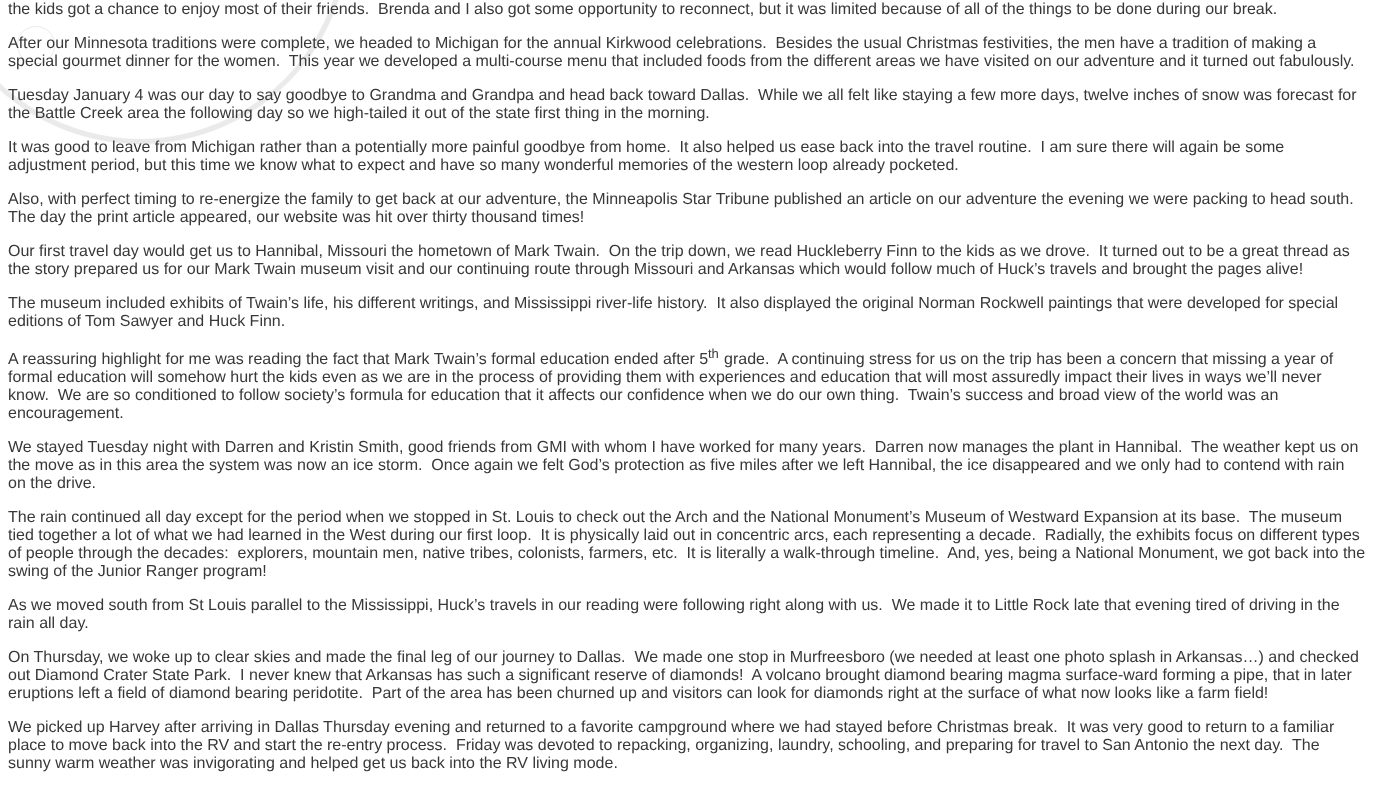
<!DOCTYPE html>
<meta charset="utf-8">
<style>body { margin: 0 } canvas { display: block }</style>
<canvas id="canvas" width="1374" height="787"></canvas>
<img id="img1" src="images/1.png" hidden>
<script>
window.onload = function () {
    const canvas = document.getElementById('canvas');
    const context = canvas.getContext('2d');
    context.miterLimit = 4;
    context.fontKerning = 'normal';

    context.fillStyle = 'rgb(255, 255, 255)';
    context.fillRect(0, 0, 1374, 787);
    context.drawImage(document.getElementById('img1'), 0, 0, 339, 144);
    context.font = '16px Liberation Sans';
    context.fillStyle = 'rgb(56, 56, 56)';
    context.fillText('the kids got a chance to enjoy most of their friends.  Brenda and I also got some opportunity to reconnect, but it was limited because of all of the things to be done during our break.', 8, 14);
    context.fillText('After our Minnesota traditions were complete, we headed to Michigan for the annual Kirkwood celebrations.  Besides the usual Christmas festivities, the men have a tradition of making a', 8, 48);
    context.fillText('special gourmet dinner for the women.  This year we developed a multi-course menu that included foods from the different areas we have visited on our adventure and it turned out fabulously.', 8, 66);
    context.fillText('Tuesday January 4 was our day to say goodbye to Grandma and Grandpa and head back toward Dallas.  While we all felt like staying a few more days, twelve inches of snow was forecast for', 8, 100);
    context.fillText('the Battle Creek area the following day so we high-tailed it out of the state first thing in the morning.', 8, 118);
    context.fillText('It was good to leave from Michigan rather than a potentially more painful goodbye from home.  It also helped us ease back into the travel routine.  I am sure there will again be some', 8, 152);
    context.fillText('adjustment period, but this time we know what to expect and have so many wonderful memories of the western loop already pocketed.', 8, 170);
    context.fillText('Also, with perfect timing to re-energize the family to get back at our adventure, the Minneapolis Star Tribune published an article on our adventure the evening we were packing to head south.', 8, 204);
    context.fillText('The day the print article appeared, our website was hit over thirty thousand times!', 8, 222);
    context.fillText('Our first travel day would get us to Hannibal, Missouri the hometown of Mark Twain.  On the trip down, we read Huckleberry Finn to the kids as we drove.  It turned out to be a great thread as', 8, 256);
    context.fillText('the story prepared us for our Mark Twain museum visit and our continuing route through Missouri and Arkansas which would follow much of Huck’s travels and brought the pages alive!', 8, 274);
    context.fillText('The museum included exhibits of Twain’s life, his different writings, and Mississippi river-life history.  It also displayed the original Norman Rockwell paintings that were developed for special', 8, 308);
    context.fillText('editions of Tom Sawyer and Huck Finn.', 8, 326);
    context.fillText('A reassuring highlight for me was reading the fact that Mark Twain’s formal education ended after 5', 8, 364);
    context.font = '13px Liberation Sans';
    context.fillText('th', 708, 358);
    context.font = '16px Liberation Sans';
    context.fillText('grade.  A continuing stress for us on the trip has been a concern that missing a year of', 724, 364);
    context.fillText('formal education will somehow hurt the kids even as we are in the process of providing them with experiences and education that will most assuredly impact their lives in ways we’ll never', 8, 382);
    context.fillText('know.  We are so conditioned to follow society’s formula for education that it affects our confidence when we do our own thing.  Twain’s success and broad view of the world was an', 8, 400);
    context.fillText('encouragement.', 8, 418);
    context.fillText('We stayed Tuesday night with Darren and Kristin Smith, good friends from GMI with whom I have worked for many years.  Darren now manages the plant in Hannibal.  The weather kept us on', 8, 452);
    context.fillText('the move as in this area the system was now an ice storm.  Once again we felt God’s protection as five miles after we left Hannibal, the ice disappeared and we only had to contend with rain', 8, 470);
    context.fillText('on the drive.', 8, 488);
    context.fillText('The rain continued all day except for the period when we stopped in St. Louis to check out the Arch and the National Monument’s Museum of Westward Expansion at its base.  The museum', 8, 522);
    context.fillText('tied together a lot of what we had learned in the West during our first loop.  It is physically laid out in concentric arcs, each representing a decade.  Radially, the exhibits focus on different types', 8, 540);
    context.fillText('of people through the decades:  explorers, mountain men, native tribes, colonists, farmers, etc.  It is literally a walk-through timeline.  And, yes, being a National Monument, we got back into the', 8, 558);
    context.fillText('swing of the Junior Ranger program!', 8, 576);
    context.fillText('As we moved south from St Louis parallel to the Mississippi, Huck’s travels in our reading were following right along with us.  We made it to Little Rock late that evening tired of driving in the', 8, 610);
    context.fillText('rain all day.', 8, 628);
    context.fillText('On Thursday, we woke up to clear skies and made the final leg of our journey to Dallas.  We made one stop in Murfreesboro (we needed at least one photo splash in Arkansas…) and checked', 8, 662);
    context.fillText('out Diamond Crater State Park.  I never knew that Arkansas has such a significant reserve of diamonds!  A volcano brought diamond bearing magma surface-ward forming a pipe, that in later', 8, 680);
    context.fillText('eruptions left a field of diamond bearing peridotite.  Part of the area has been churned up and visitors can look for diamonds right at the surface of what now looks like a farm field!', 8, 698);
    context.fillText('We picked up Harvey after arriving in Dallas Thursday evening and returned to a favorite campground where we had stayed before Christmas break.  It was very good to return to a familiar', 8, 732);
    context.fillText('place to move back into the RV and start the re-entry process.  Friday was devoted to repacking, organizing, laundry, schooling, and preparing for travel to San Antonio the next day.  The', 8, 750);
    context.fillText('sunny warm weather was invigorating and helped get us back into the RV living mode.', 8, 768);
};
</script>
